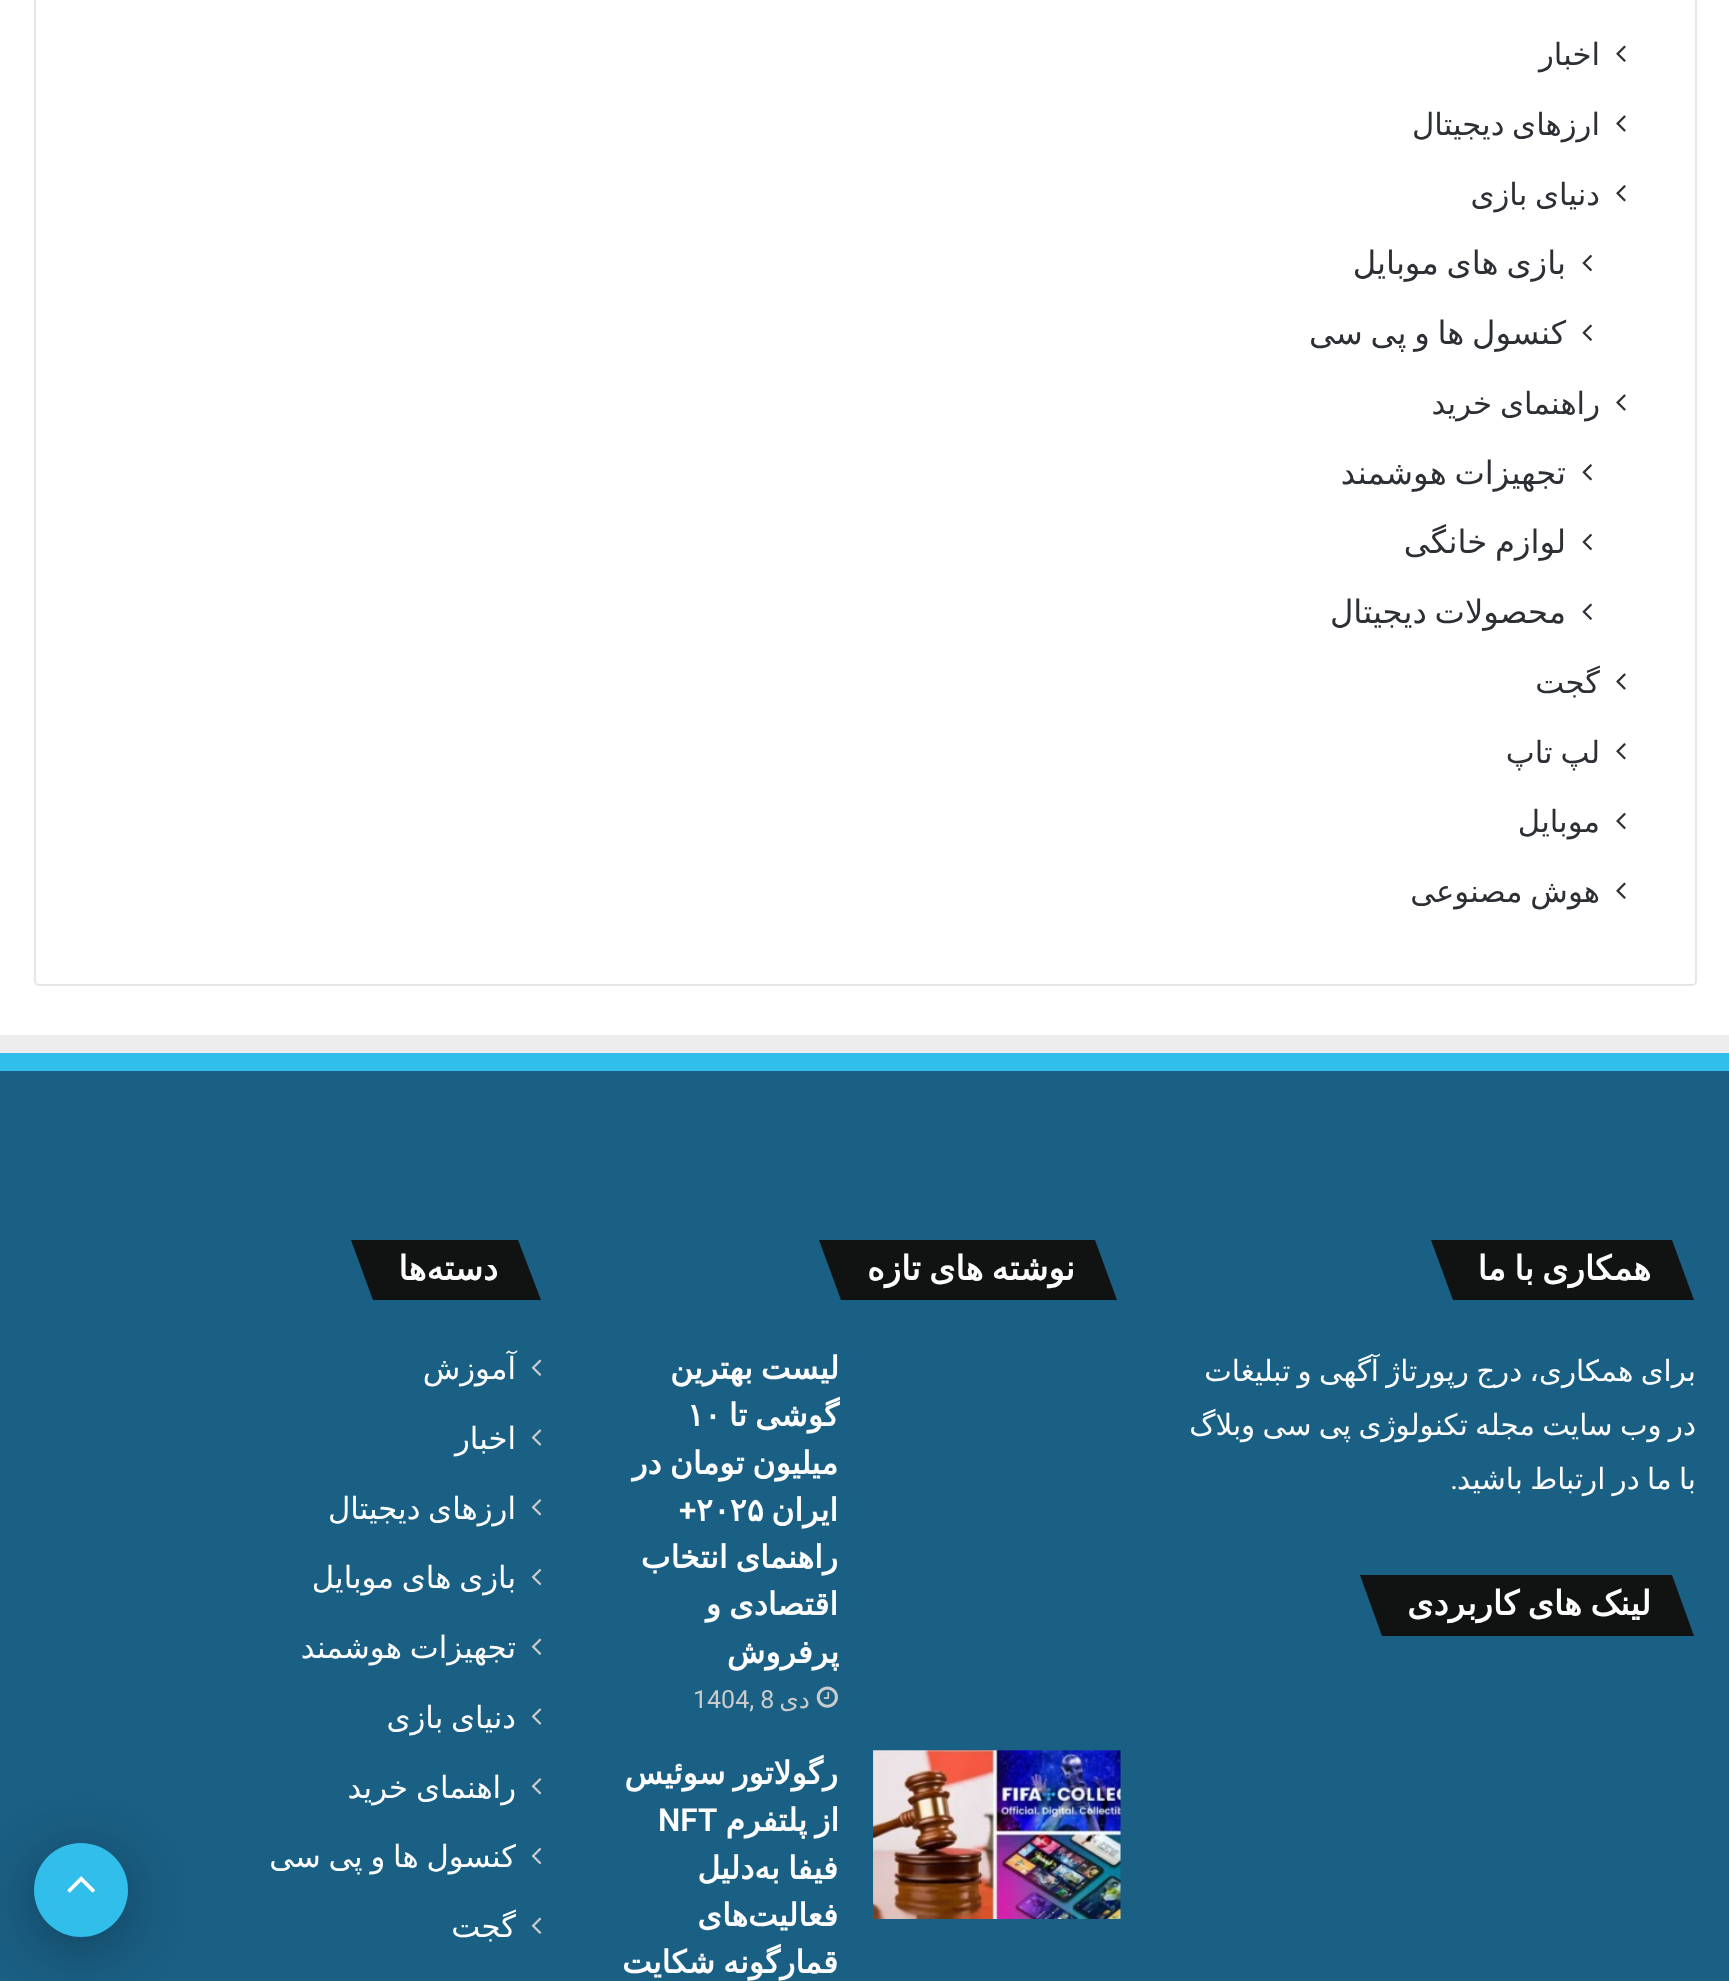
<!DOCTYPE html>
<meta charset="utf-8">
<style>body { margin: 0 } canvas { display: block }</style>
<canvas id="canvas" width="1729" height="1981"></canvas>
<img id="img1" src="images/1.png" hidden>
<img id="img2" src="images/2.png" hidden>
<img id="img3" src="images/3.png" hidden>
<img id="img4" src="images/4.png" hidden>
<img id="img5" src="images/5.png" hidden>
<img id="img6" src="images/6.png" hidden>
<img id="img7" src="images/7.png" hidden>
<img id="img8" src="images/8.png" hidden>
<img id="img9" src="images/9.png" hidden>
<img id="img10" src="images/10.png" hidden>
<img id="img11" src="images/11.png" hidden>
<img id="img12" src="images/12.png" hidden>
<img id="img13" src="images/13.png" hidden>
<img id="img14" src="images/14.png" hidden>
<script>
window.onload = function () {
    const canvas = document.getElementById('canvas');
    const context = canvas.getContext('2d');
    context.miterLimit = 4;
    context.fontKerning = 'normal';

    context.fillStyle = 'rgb(255, 255, 255)';
    context.fillRect(0, 0, 1729, 1981);
    context.beginPath();
    context.roundRect(35, -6, 1661, 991, 4);
    context.strokeStyle = 'rgb(230, 230, 230)';
    context.lineWidth = 2;
    context.stroke();
    context.drawImage(document.getElementById('img1'), 1616, 45, 10, 17);
    context.drawImage(document.getElementById('img2'), 1616, 115, 10, 17);
    context.drawImage(document.getElementById('img3'), 1616, 185, 10, 17);
    context.drawImage(document.getElementById('img4'), 1582, 254, 10, 18);
    context.drawImage(document.getElementById('img5'), 1582, 324, 10, 17);
    context.drawImage(document.getElementById('img2'), 1616, 394, 10, 17);
    context.drawImage(document.getElementById('img6'), 1582, 464, 10, 17);
    context.drawImage(document.getElementById('img4'), 1582, 533, 10, 18);
    context.drawImage(document.getElementById('img5'), 1582, 603, 10, 17);
    context.drawImage(document.getElementById('img2'), 1616, 673, 10, 17);
    context.drawImage(document.getElementById('img3'), 1616, 743, 10, 17);
    context.drawImage(document.getElementById('img7'), 1616, 812, 10, 18);
    context.drawImage(document.getElementById('img1'), 1616, 882, 10, 17);
    context.fillStyle = 'rgb(26, 95, 132)';
    context.fillRect(0, 1071, 1729, 910);
    context.fillStyle = 'rgb(237, 237, 237)';
    context.fillRect(0, 1035, 1729, 18);
    context.fillStyle = 'rgb(50, 190, 235)';
    context.fillRect(0, 1053, 1729, 18);
    context.fillStyle = 'rgb(17, 19, 19)';
    context.beginPath();
    context.moveTo(1431, 1240);
    context.lineTo(1672, 1240);
    context.lineTo(1694, 1300);
    context.lineTo(1453, 1300);
    context.closePath();
    context.fill();
    context.beginPath();
    context.moveTo(1360, 1575);
    context.lineTo(1672, 1575);
    context.lineTo(1694, 1636);
    context.lineTo(1382, 1636);
    context.closePath();
    context.fill();
    context.beginPath();
    context.moveTo(819, 1240);
    context.lineTo(1095, 1240);
    context.lineTo(1117, 1300);
    context.lineTo(841, 1300);
    context.closePath();
    context.fill();
    context.drawImage(document.getElementById('img8'), 816, 1686, 22, 22);
    context.drawImage(document.getElementById('img9'), 873, 1750, 248, 169);
    context.beginPath();
    context.moveTo(351, 1240);
    context.lineTo(518, 1240);
    context.lineTo(541, 1300);
    context.lineTo(373, 1300);
    context.closePath();
    context.fill();
    context.drawImage(document.getElementById('img10'), 531, 1359, 11, 17);
    context.drawImage(document.getElementById('img11'), 531, 1429, 11, 17);
    context.drawImage(document.getElementById('img12'), 531, 1499, 11, 17);
    context.drawImage(document.getElementById('img13'), 531, 1568, 11, 18);
    context.drawImage(document.getElementById('img10'), 531, 1638, 11, 17);
    context.drawImage(document.getElementById('img11'), 531, 1708, 11, 17);
    context.drawImage(document.getElementById('img12'), 531, 1778, 11, 17);
    context.drawImage(document.getElementById('img13'), 531, 1847, 11, 18);
    context.drawImage(document.getElementById('img10'), 531, 1917, 11, 17);
    context.fillStyle = 'rgba(0, 0, 0, 0.3)';
    context.filter = 'blur(28px)';
    context.beginPath();
    context.roundRect(34, 1854, 94, 95, 47);
    context.fill();
    context.filter = 'none';
    context.fillStyle = 'rgb(50, 190, 235)';
    context.beginPath();
    context.arc(81, 1890, 47, 0, 2 * Math.PI);
    context.fill();
    context.drawImage(document.getElementById('img14'), 67, 1876, 28, 17);
    context.direction = 'rtl';
    context.font = '30.75px DejaVu Sans';
    context.fillStyle = 'rgb(44, 47, 52)';
    context.fillText('اخبار', 1600, 65);
    context.wordSpacing = '-2px';
    context.fillText('ارزهای دیجیتال', 1600, 135);
    context.fillText('دنیای بازی', 1600, 205);
    context.wordSpacing = '-2.5px';
    context.font = '32.25px DejaVu Sans';
    context.fillText('بازی های موبایل', 1566, 274);
    context.fillText('کنسول ها و پی سی', 1566, 344);
    context.wordSpacing = '-2px';
    context.font = '30.75px DejaVu Sans';
    context.fillText('راهنمای خرید', 1600, 414);
    context.wordSpacing = '-2.5px';
    context.font = '32.25px DejaVu Sans';
    context.fillText('تجهیزات هوشمند', 1566, 484);
    context.fillText('لوازم خانگی', 1566, 553);
    context.fillText('محصولات دیجیتال', 1566, 623);
    context.wordSpacing = '0px';
    context.font = '30.75px DejaVu Sans';
    context.fillText('گجت', 1600, 693);
    context.wordSpacing = '-2px';
    context.fillText('لپ تاپ', 1600, 763);
    context.wordSpacing = '0px';
    context.fillText('موبایل', 1600, 832);
    context.wordSpacing = '-2px';
    context.fillText('هوش مصنوعی', 1600, 902);
    context.wordSpacing = '-2.5px';
    context.font = 'bold 33.75px DejaVu Sans';
    context.fillStyle = 'rgb(253, 253, 254)';
    context.fillText('همکاری با ما', 1651, 1280);
    context.save();
    context.beginPath();
    context.rect(1188, 1346, 509, 162);
    context.clip();
    context.wordSpacing = '-2px';
    context.font = '29.25px DejaVu Sans';
    context.fillText('برای همکاری، درج رپورتاژ آگهی و تبلیغات', 1696, 1381);
    context.fillText('در وب سایت مجله تکنولوژی پی سی وبلاگ', 1696, 1435);
    context.fillText('با ما در ارتباط باشید', 1696, 1489);
    context.restore();
    context.wordSpacing = '0px';
    context.font = '29.25px Roboto';
    context.fillText('.', 1458, 1489);
    context.wordSpacing = '-2.5px';
    context.font = 'bold 33.75px DejaVu Sans';
    context.fillText('لینک های کاربردی', 1651, 1615);
    context.fillText('نوشته های تازه', 1075, 1280);
    context.wordSpacing = '-2px';
    context.font = 'bold 31.5px DejaVu Sans';
    context.fillText('لیست بهترین', 839, 1379);
    context.fillText('گوشی تا', 839, 1426);
    context.wordSpacing = '0px';
    context.direction = 'ltr';
    context.fillText('۱۰', 687, 1426);
    context.wordSpacing = '-2px';
    context.direction = 'rtl';
    context.fillText('میلیون تومان در', 838, 1474);
    context.wordSpacing = '0px';
    context.fillText('ایران', 838, 1521);
    context.direction = 'ltr';
    context.fillText('۲۰۲۵', 696, 1521);
    context.font = '600 31.5px Roboto';
    context.fillText('+', 679, 1521);
    context.wordSpacing = '-2px';
    context.direction = 'rtl';
    context.font = 'bold 31.5px DejaVu Sans';
    context.fillText('راهنمای انتخاب', 838, 1568);
    context.fillText('اقتصادی و', 838, 1615);
    context.wordSpacing = '0px';
    context.fillText('پرفروش', 839, 1663);
    context.font = '25px DejaVu Sans';
    context.fillStyle = 'rgb(202, 203, 203)';
    context.fillText('دی', 810, 1708);
    context.direction = 'ltr';
    context.font = '25px Roboto';
    context.fillText('1404, 8', 693, 1708);
    context.wordSpacing = '-2px';
    context.direction = 'rtl';
    context.font = 'bold 31.5px DejaVu Sans';
    context.fillStyle = 'rgb(253, 253, 254)';
    context.fillText('رگولاتور سوئیس', 838, 1784);
    context.fillText('از پلتفرم', 839, 1831);
    context.wordSpacing = '0px';
    context.direction = 'ltr';
    context.font = '600 31.5px Roboto';
    context.fillText('NFT', 658, 1831);
    context.wordSpacing = '-2px';
    context.direction = 'rtl';
    context.font = 'bold 31.5px DejaVu Sans';
    context.fillText('فیفا به‌دلیل', 838, 1879);
    context.wordSpacing = '0px';
    context.fillText('فعالیت‌های', 838, 1926);
    context.wordSpacing = '-2px';
    context.fillText('قمارگونه شکایت', 838, 1973);
    context.wordSpacing = '0px';
    context.font = 'bold 33.75px DejaVu Sans';
    context.fillText('دسته‌ها', 498, 1280);
    context.font = '30.75px DejaVu Sans';
    context.fillText('آموزش', 516, 1379);
    context.fillText('اخبار', 516, 1449);
    context.wordSpacing = '-2px';
    context.fillText('ارزهای دیجیتال', 516, 1519);
    context.fillText('بازی های موبایل', 516, 1588);
    context.fillText('تجهیزات هوشمند', 516, 1658);
    context.fillText('دنیای بازی', 516, 1728);
    context.fillText('راهنمای خرید', 516, 1798);
    context.fillText('کنسول ها و پی سی', 516, 1867);
    context.wordSpacing = '0px';
    context.fillText('گجت', 516, 1937);
};
</script>
